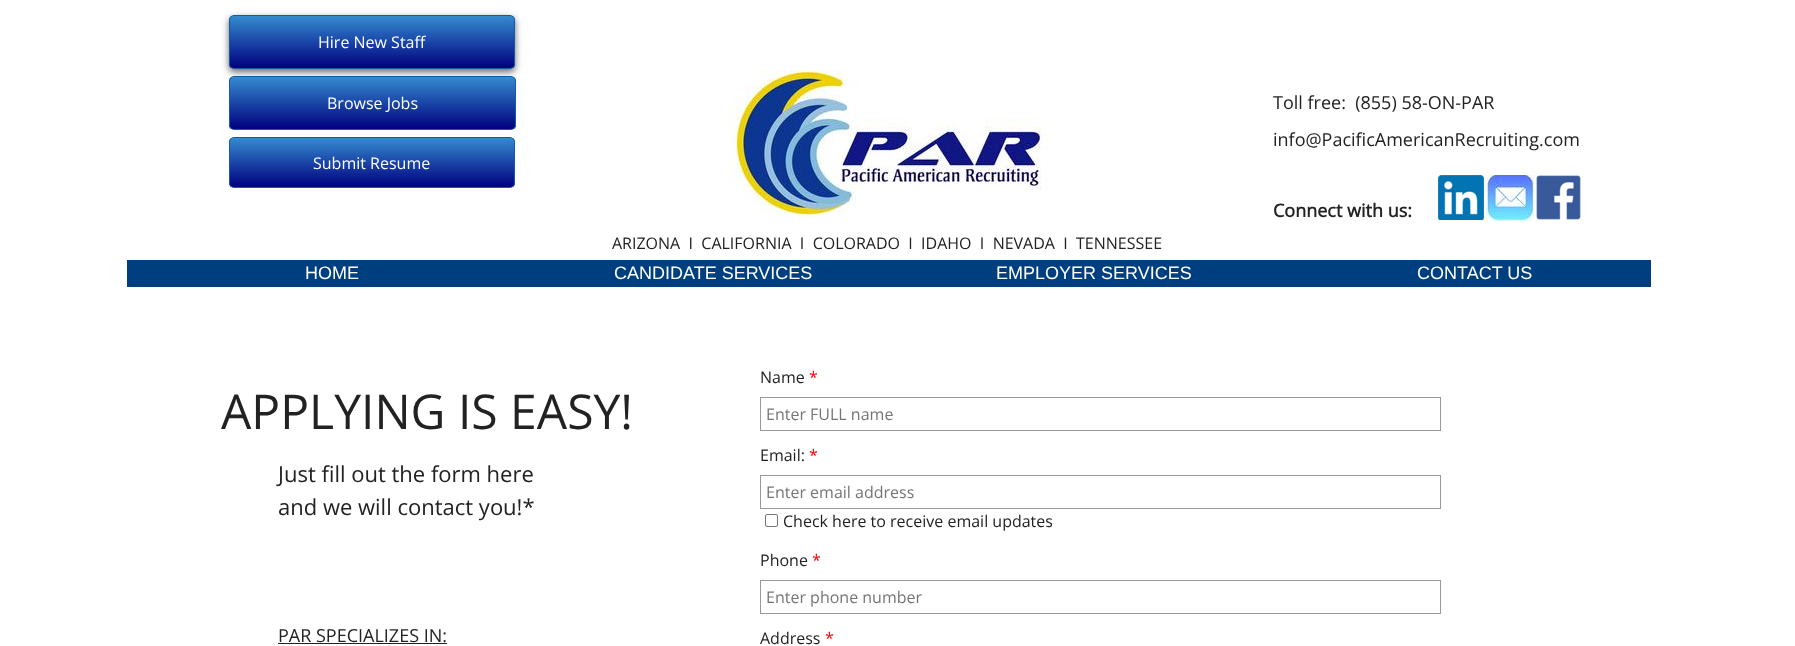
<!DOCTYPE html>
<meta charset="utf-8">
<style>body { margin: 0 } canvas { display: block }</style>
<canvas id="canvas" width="1795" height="646"></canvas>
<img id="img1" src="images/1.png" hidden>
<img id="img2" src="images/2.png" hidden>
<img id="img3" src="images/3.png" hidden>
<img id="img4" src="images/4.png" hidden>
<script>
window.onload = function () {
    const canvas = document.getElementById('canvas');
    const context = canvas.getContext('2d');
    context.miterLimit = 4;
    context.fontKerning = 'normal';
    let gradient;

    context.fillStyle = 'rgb(255, 255, 255)';
    context.fillRect(0, 0, 1795, 646);
    context.fillStyle = 'rgba(50, 50, 50, 0.75)';
    context.filter = 'blur(3.5px)';
    context.beginPath();
    context.roundRect(229, 18, 286, 54, 5);
    context.fill();
    context.filter = 'none';
    context.save();
    context.beginPath();
    context.roundRect(229, 15, 286, 54, 5);
    context.clip();
    gradient = context.createLinearGradient(372, 16, 372, 68);
    gradient.addColorStop(0, 'rgb(52, 139, 207)');
    gradient.addColorStop(1, 'rgb(0, 0, 127)');
    context.fillStyle = gradient;
    context.fillRect(229, 16, 286, 52);
    context.restore();
    context.beginPath();
    context.roundRect(229.5, 15.5, 285, 53, 4.5);
    context.strokeStyle = 'rgb(18, 92, 166)';
    context.stroke();
    context.save();
    context.beginPath();
    context.roundRect(229, 76, 287, 54, 5);
    context.clip();
    gradient = context.createLinearGradient(373, 77, 373, 129);
    gradient.addColorStop(0, 'rgb(52, 139, 207)');
    gradient.addColorStop(1, 'rgb(0, 0, 127)');
    context.fillStyle = gradient;
    context.fillRect(229, 77, 287, 52);
    context.restore();
    context.beginPath();
    context.roundRect(229.5, 76.5, 286, 53, 4.5);
    context.stroke();
    context.drawImage(document.getElementById('img1'), 728, 69, 321, 151);
    context.save();
    context.beginPath();
    context.roundRect(229, 137, 286, 51, 5);
    context.clip();
    gradient = context.createLinearGradient(372, 138, 372, 187);
    gradient.addColorStop(0, 'rgb(52, 139, 207)');
    gradient.addColorStop(1, 'rgb(0, 0, 127)');
    context.fillStyle = gradient;
    context.fillRect(229, 138, 286, 49);
    context.restore();
    context.beginPath();
    context.roundRect(229.5, 137.5, 285, 50, 4.5);
    context.stroke();
    context.drawImage(document.getElementById('img2'), 1438, 175, 46, 45);
    context.drawImage(document.getElementById('img3'), 1486, 175, 48, 46);
    context.drawImage(document.getElementById('img4'), 1536, 175, 45, 45);
    context.fillStyle = 'rgb(0, 63, 127)';
    context.fillRect(127, 260, 1524, 27);
    context.strokeStyle = 'rgb(153, 153, 153)';
    context.strokeRect(760.5, 397.5, 680, 33);
    context.strokeRect(760.5, 475.5, 680, 33);
    context.beginPath();
    context.roundRect(765.5, 514.5, 12, 12, 1.5);
    context.strokeStyle = 'rgb(118, 118, 118)';
    context.stroke();
    context.strokeStyle = 'rgb(153, 153, 153)';
    context.strokeRect(760.5, 580.5, 680, 33);
    context.fillStyle = 'rgb(34, 34, 34)';
    context.fillRect(278, 643, 169, 1);
    context.font = '16px Open Sans';
    context.fillStyle = 'rgb(255, 255, 255)';
    context.fillText('Hire New Staff', 318, 48);
    context.fillText('Browse Jobs', 327, 109);
    context.font = '18px Open Sans';
    context.fillStyle = 'rgb(34, 34, 34)';
    context.fillText('Toll free:  (855) 58-ON-PAR', 1273, 109);
    context.fillText('info@PacificAmericanRecruiting.com', 1273, 146);
    context.font = 'bold 18px Open Sans';
    context.fillText('Connect with us:', 1273, 217);
    context.font = '16px Open Sans';
    context.fillStyle = 'rgb(255, 255, 255)';
    context.fillText('Submit Resume', 313, 169);
    context.fillStyle = 'rgb(34, 34, 34)';
    context.fillText('ARIZONA  I  CALIFORNIA  I  COLORADO  I  IDAHO  I  NEVADA  I  TENNESSEE', 612, 249);
    context.font = '18px Liberation Sans';
    context.fillStyle = 'rgb(255, 255, 255)';
    context.fillText('HOME', 305, 279);
    context.fillText('CANDIDATE SERVICES', 614, 279);
    context.fillText('EMPLOYER SERVICES', 996, 279);
    context.fillText('CONTACT US', 1417, 279);
    context.font = '48px Open Sans';
    context.fillStyle = 'rgb(34, 34, 34)';
    context.fillText('APPLYING IS EASY!', 221, 429);
    context.font = '16px Open Sans';
    context.fillText('Name', 760, 383);
    context.fillStyle = 'rgb(255, 0, 0)';
    context.fillText('*', 809, 383);
    context.fillStyle = 'rgb(117, 117, 117)';
    context.fillText('Enter FULL name', 766, 420);
    context.font = '22px Open Sans';
    context.fillStyle = 'rgb(34, 34, 34)';
    context.fillText('Just fill out the form here', 278, 482);
    context.fillText('and we will contact you!*', 278, 515);
    context.font = '16px Open Sans';
    context.fillText('Email:', 760, 461);
    context.fillStyle = 'rgb(255, 0, 0)';
    context.fillText('*', 809, 461);
    context.fillStyle = 'rgb(117, 117, 117)';
    context.fillText('Enter email address', 766, 498);
    context.fillStyle = 'rgb(34, 34, 34)';
    context.fillText('Check here to receive email updates', 783, 527);
    context.fillText('Phone', 760, 566);
    context.fillStyle = 'rgb(255, 0, 0)';
    context.fillText('*', 812, 566);
    context.fillStyle = 'rgb(117, 117, 117)';
    context.fillText('Enter phone number', 766, 603);
    context.font = '18px Open Sans';
    context.fillStyle = 'rgb(34, 34, 34)';
    context.fillText('PAR SPECIALIZES IN:', 278, 642);
    context.font = '16px Open Sans';
    context.fillText('Address', 760, 644);
    context.fillStyle = 'rgb(255, 0, 0)';
    context.fillText('*', 825, 644);
};
</script>
